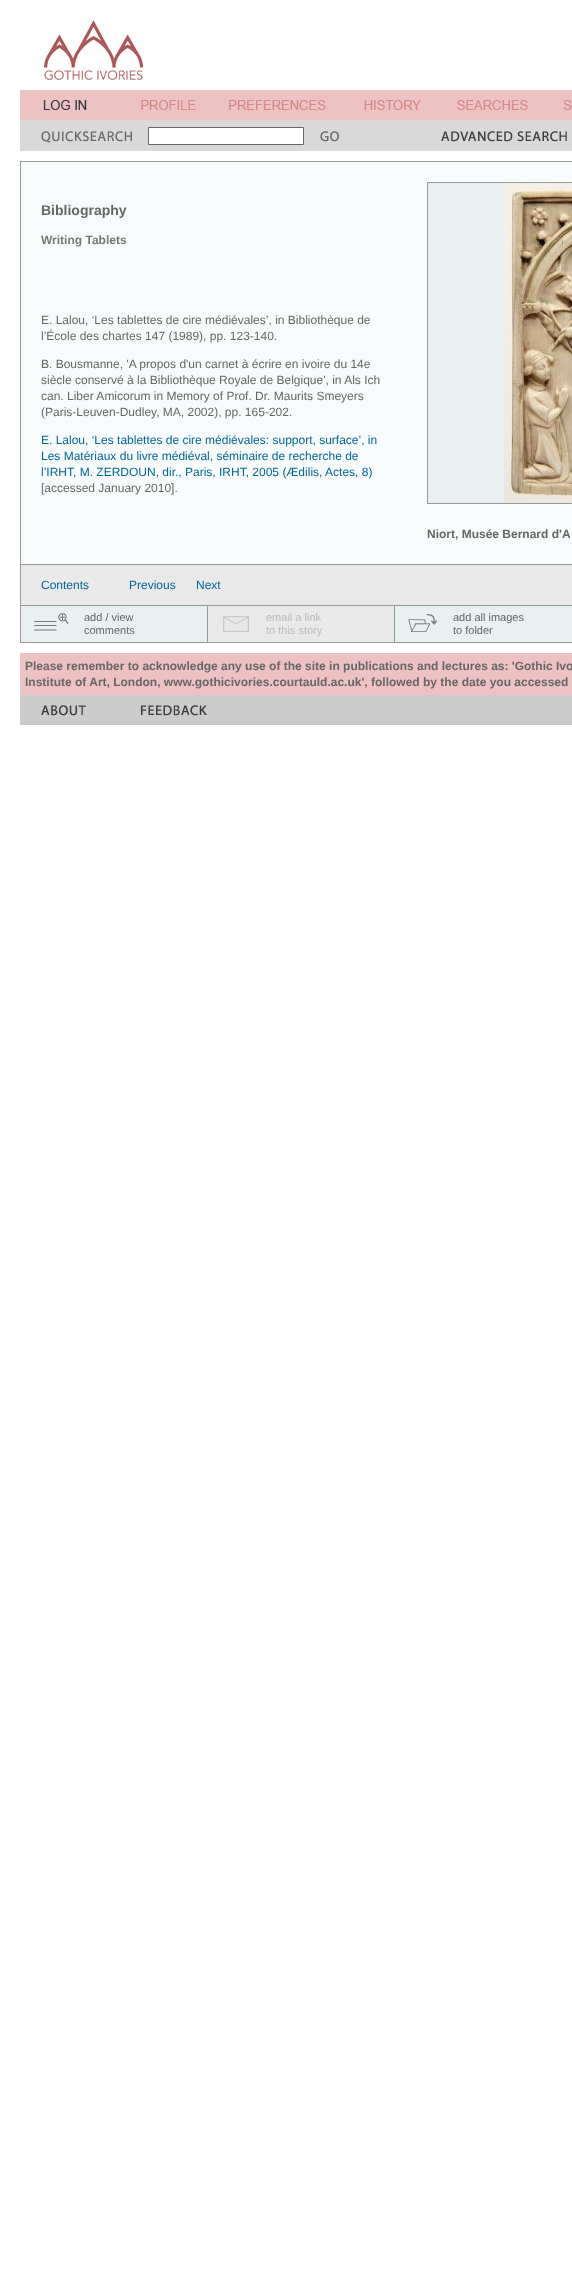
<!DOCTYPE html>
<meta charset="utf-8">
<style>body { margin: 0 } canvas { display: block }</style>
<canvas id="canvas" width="572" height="2288"></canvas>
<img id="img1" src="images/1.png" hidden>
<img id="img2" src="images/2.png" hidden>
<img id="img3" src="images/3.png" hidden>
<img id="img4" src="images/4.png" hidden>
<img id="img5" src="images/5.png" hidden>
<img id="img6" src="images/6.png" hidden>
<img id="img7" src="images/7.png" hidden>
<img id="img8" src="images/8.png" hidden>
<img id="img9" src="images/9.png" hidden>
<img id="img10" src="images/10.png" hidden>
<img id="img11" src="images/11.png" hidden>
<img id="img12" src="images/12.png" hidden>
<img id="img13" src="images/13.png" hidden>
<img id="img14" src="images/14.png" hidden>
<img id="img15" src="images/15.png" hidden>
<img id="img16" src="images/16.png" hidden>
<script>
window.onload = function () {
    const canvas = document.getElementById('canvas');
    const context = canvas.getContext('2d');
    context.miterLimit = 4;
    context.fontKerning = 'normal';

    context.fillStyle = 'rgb(255, 255, 255)';
    context.fillRect(0, 0, 572, 2288);
    context.drawImage(document.getElementById('img1'), 44, 20, 99, 60);
    context.fillStyle = 'rgb(236, 194, 194)';
    context.fillRect(20, 90, 552, 30);
    context.drawImage(document.getElementById('img2'), 43, 100, 44, 10);
    context.drawImage(document.getElementById('img3'), 141, 100, 55, 10);
    context.drawImage(document.getElementById('img4'), 229, 100, 97, 10);
    context.drawImage(document.getElementById('img5'), 364, 100, 57, 10);
    context.drawImage(document.getElementById('img6'), 457, 100, 71, 10);
    context.drawImage(document.getElementById('img7'), 563, 100, 9, 10);
    context.fillStyle = 'rgb(217, 217, 217)';
    context.fillRect(20, 120, 552, 31);
    context.drawImage(document.getElementById('img8'), 41, 131, 91, 12);
    context.fillStyle = 'rgb(255, 255, 255)';
    context.beginPath();
    context.rect(148.5, 127.5, 155, 17);
    context.fill();
    context.strokeStyle = 'rgb(102, 102, 102)';
    context.stroke();
    context.drawImage(document.getElementById('img9'), 320, 131, 19, 11);
    context.drawImage(document.getElementById('img10'), 441, 131, 126, 11);
    context.fillStyle = 'rgb(153, 153, 153)';
    context.fillRect(20, 161, 552, 482);
    context.fillStyle = 'rgb(248, 251, 252)';
    context.fillRect(21, 162, 551, 402);
    context.fillStyle = 'rgb(153, 153, 153)';
    context.fillRect(427, 182, 145, 322);
    context.fillStyle = 'rgb(234, 239, 242)';
    context.fillRect(428, 183, 76, 320);
    context.drawImage(document.getElementById('img11'), 504, 183, 68, 320);
    context.fillStyle = 'rgb(233, 233, 233)';
    context.fillRect(21, 565, 551, 40);
    context.fillStyle = 'rgb(232, 240, 242)';
    context.fillRect(21, 606, 186, 36);
    context.drawImage(document.getElementById('img12'), 34, 613, 35, 18);
    context.fillStyle = 'rgb(233, 233, 233)';
    context.fillRect(208, 606, 186, 36);
    context.drawImage(document.getElementById('img13'), 223, 616, 26, 16);
    context.fillStyle = 'rgb(232, 240, 242)';
    context.fillRect(395, 606, 177, 36);
    context.drawImage(document.getElementById('img14'), 408, 614, 29, 18);
    context.fillStyle = 'rgb(236, 194, 194)';
    context.fillRect(20, 653, 552, 42);
    context.fillStyle = 'rgb(204, 204, 204)';
    context.fillRect(20, 695, 552, 30);
    context.drawImage(document.getElementById('img15'), 41, 705, 45, 11);
    context.drawImage(document.getElementById('img16'), 141, 705, 66, 11);
    context.font = 'bold 14px Liberation Sans';
    context.fillStyle = 'rgb(102, 102, 102)';
    context.fillText('Bibliography', 41, 215);
    context.font = 'bold 12px Liberation Sans';
    context.fillStyle = 'rgb(119, 119, 119)';
    context.fillText('Writing Tablets', 41, 244);
    context.fillStyle = 'rgb(102, 102, 102)';
    context.fillText('Niort, Musée Bernard d\'A', 427, 538);
    context.font = '12px Liberation Sans';
    context.fillText('E. Lalou, ‘Les tablettes de cire médiévales’, in Bibliothèque de', 41, 324);
    context.fillText('l’École des chartes 147 (1989), pp. 123-140.', 41, 340);
    context.fillText('B. Bousmanne, \'A propos d\'un carnet à écrire en ivoire du 14e', 41, 368);
    context.fillText('siècle conservé à la Bibliothèque Royale de Belgique\', in Als Ich', 41, 384);
    context.fillText('can. Liber Amicorum in Memory of Prof. Dr. Maurits Smeyers', 41, 400);
    context.fillText('(Paris-Leuven-Dudley, MA, 2002), pp. 165-202.', 41, 416);
    context.fillStyle = 'rgb(0, 102, 153)';
    context.fillText('E. Lalou, ‘Les tablettes de cire médiévales: support, surface’, in', 41, 444);
    context.fillText('Les Matériaux du livre médiéval, séminaire de recherche de', 41, 460);
    context.fillText('l’IRHT, M. ZERDOUN, dir., Paris, IRHT, 2005 (Ædilis, Actes, 8)', 41, 476);
    context.fillStyle = 'rgb(102, 102, 102)';
    context.fillText('[accessed January 2010].', 41, 492);
    context.fillStyle = 'rgb(0, 102, 153)';
    context.fillText('Contents', 41, 589);
    context.fillText('Previous', 129, 589);
    context.fillText('Next', 196, 589);
    context.font = '11px Liberation Sans';
    context.fillStyle = 'rgb(102, 102, 102)';
    context.fillText('add / view', 84, 621);
    context.fillText('comments', 84, 634);
    context.fillStyle = 'rgb(187, 187, 187)';
    context.fillText('email a link', 266, 621);
    context.fillText('to this story', 266, 634);
    context.fillStyle = 'rgb(102, 102, 102)';
    context.fillText('add all images', 453, 621);
    context.fillText('to folder', 453, 634);
    context.font = 'bold 12px Liberation Sans';
    context.fillText('Please remember to acknowledge any use of the site in publications and lectures as: \'Gothic Ivo', 25, 670);
    context.fillText('Institute of Art, London, www.gothicivories.courtauld.ac.uk\', followed by the date you accessed', 25, 686);
};
</script>
